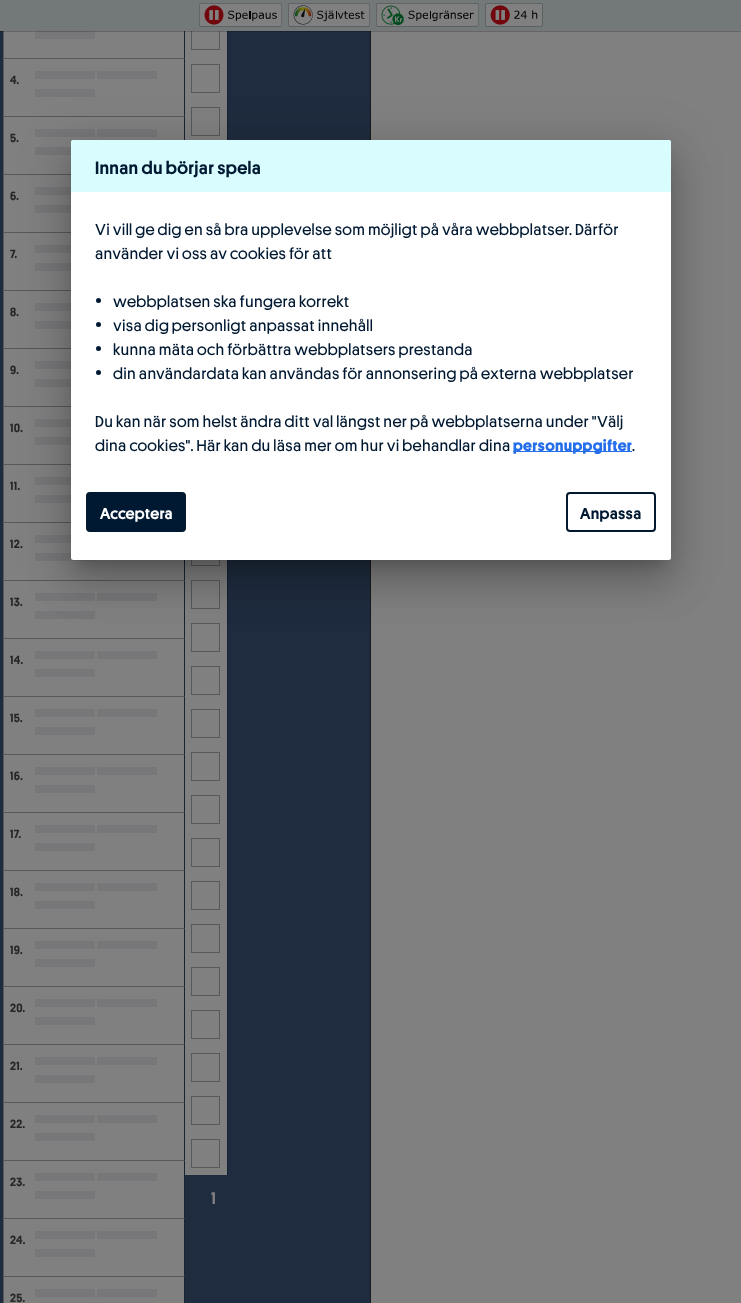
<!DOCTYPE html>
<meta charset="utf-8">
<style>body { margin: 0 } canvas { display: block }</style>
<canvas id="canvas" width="741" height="1303"></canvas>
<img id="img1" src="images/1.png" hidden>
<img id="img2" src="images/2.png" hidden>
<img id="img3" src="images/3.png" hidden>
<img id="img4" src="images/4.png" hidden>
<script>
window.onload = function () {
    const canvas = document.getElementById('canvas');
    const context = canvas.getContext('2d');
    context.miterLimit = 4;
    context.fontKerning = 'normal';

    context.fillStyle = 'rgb(128, 128, 128)';
    context.fillRect(0, 0, 741, 1303);
    context.fillStyle = 'rgb(31, 44, 63)';
    context.fillRect(0, 31, 370, 1272);
    context.fillStyle = 'rgb(25, 25, 26)';
    context.fillRect(370, 31, 1, 1272);
    context.fillStyle = 'rgb(128, 128, 128)';
    context.fillRect(4, 31, 180, 1272);
    context.fillStyle = 'rgb(25, 36, 50)';
    context.beginPath();
    context.moveTo(185, 0);
    context.lineTo(185, 59);
    context.lineTo(184, 58);
    context.lineTo(184, 1);
    context.closePath();
    context.fill();
    context.fillStyle = 'rgb(88, 88, 90)';
    context.fillRect(3, 58, 182, 1);
    context.beginPath();
    context.moveTo(3, 59);
    context.lineTo(3, 0);
    context.lineTo(4, 1);
    context.lineTo(4, 58);
    context.closePath();
    context.fill();
    context.fillStyle = 'rgb(119, 119, 121)';
    context.beginPath();
    context.roundRect(35, 31, 60, 8, 1);
    context.fill();
    context.fillStyle = 'rgb(128, 128, 128)';
    context.fillRect(185, 31, 42, 109);
    context.fillStyle = 'rgb(20, 33, 50)';
    context.fillRect(227, 31, 1, 112);
    context.strokeStyle = 'rgb(88, 88, 90)';
    context.strokeRect(191.5, 21.5, 28, 28);
    context.fillStyle = 'rgba(0, 0, 0, 0.2)';
    context.filter = 'blur(0.5px)';
    context.beginPath();
    context.rect(0, 1, 741, 31);
    context.fill();
    context.filter = 'none';
    context.fillStyle = 'rgb(115, 120, 121)';
    context.fillRect(0, 0, 741, 30);
    context.fillStyle = 'rgb(119, 119, 121)';
    context.fillRect(0, 30, 741, 1);
    context.drawImage(document.getElementById('img1'), 199, 3, 83, 24);
    context.drawImage(document.getElementById('img2'), 288, 3, 82, 24);
    context.drawImage(document.getElementById('img3'), 376, 3, 103, 24);
    context.drawImage(document.getElementById('img4'), 485, 3, 58, 24);
    context.fillStyle = 'rgb(25, 36, 50)';
    context.beginPath();
    context.moveTo(185, 58);
    context.lineTo(185, 117);
    context.lineTo(184, 116);
    context.lineTo(184, 59);
    context.closePath();
    context.fill();
    context.fillStyle = 'rgb(88, 88, 90)';
    context.fillRect(3, 116, 182, 1);
    context.beginPath();
    context.moveTo(3, 117);
    context.lineTo(3, 58);
    context.lineTo(4, 59);
    context.lineTo(4, 116);
    context.closePath();
    context.fill();
    context.fillStyle = 'rgb(119, 119, 121)';
    context.beginPath();
    context.roundRect(35, 71, 60, 8, 1);
    context.fill();
    context.beginPath();
    context.roundRect(97, 71, 60, 8, 1);
    context.fill();
    context.beginPath();
    context.roundRect(35, 89, 60, 8, 1);
    context.fill();
    context.fillStyle = 'rgb(25, 36, 50)';
    context.beginPath();
    context.moveTo(185, 116);
    context.lineTo(185, 175);
    context.lineTo(184, 174);
    context.lineTo(184, 117);
    context.closePath();
    context.fill();
    context.fillStyle = 'rgb(88, 88, 90)';
    context.fillRect(3, 174, 68, 1);
    context.beginPath();
    context.moveTo(3, 175);
    context.lineTo(3, 116);
    context.lineTo(4, 117);
    context.lineTo(4, 174);
    context.closePath();
    context.fill();
    context.fillStyle = 'rgb(119, 119, 121)';
    context.beginPath();
    context.roundRect(35, 129, 60, 8, 1);
    context.fill();
    context.beginPath();
    context.roundRect(97, 129, 60, 8, 1);
    context.fill();
    context.beginPath();
    context.roundRect(35, 147, 60, 8, 1);
    context.fill();
    context.fillStyle = 'rgb(88, 88, 90)';
    context.fillRect(3, 232, 68, 1);
    context.beginPath();
    context.moveTo(3, 233);
    context.lineTo(3, 174);
    context.lineTo(4, 175);
    context.lineTo(4, 232);
    context.closePath();
    context.fill();
    context.fillStyle = 'rgb(119, 119, 121)';
    context.beginPath();
    context.roundRect(35, 187, 60, 8, 1);
    context.fill();
    context.beginPath();
    context.roundRect(35, 205, 60, 8, 1);
    context.fill();
    context.fillStyle = 'rgb(88, 88, 90)';
    context.fillRect(3, 290, 68, 1);
    context.beginPath();
    context.moveTo(3, 291);
    context.lineTo(3, 232);
    context.lineTo(4, 233);
    context.lineTo(4, 290);
    context.closePath();
    context.fill();
    context.fillStyle = 'rgb(119, 119, 121)';
    context.beginPath();
    context.roundRect(35, 245, 60, 8, 1);
    context.fill();
    context.beginPath();
    context.roundRect(35, 263, 60, 8, 1);
    context.fill();
    context.fillStyle = 'rgb(88, 88, 90)';
    context.fillRect(3, 348, 68, 1);
    context.beginPath();
    context.moveTo(3, 349);
    context.lineTo(3, 290);
    context.lineTo(4, 291);
    context.lineTo(4, 348);
    context.closePath();
    context.fill();
    context.fillStyle = 'rgb(119, 119, 121)';
    context.beginPath();
    context.roundRect(35, 303, 60, 8, 1);
    context.fill();
    context.beginPath();
    context.roundRect(35, 321, 60, 8, 1);
    context.fill();
    context.fillStyle = 'rgb(88, 88, 90)';
    context.fillRect(3, 406, 68, 1);
    context.beginPath();
    context.moveTo(3, 407);
    context.lineTo(3, 348);
    context.lineTo(4, 349);
    context.lineTo(4, 406);
    context.closePath();
    context.fill();
    context.fillStyle = 'rgb(119, 119, 121)';
    context.beginPath();
    context.roundRect(35, 361, 60, 8, 1);
    context.fill();
    context.beginPath();
    context.roundRect(35, 379, 60, 8, 1);
    context.fill();
    context.fillStyle = 'rgb(88, 88, 90)';
    context.fillRect(3, 464, 68, 1);
    context.beginPath();
    context.moveTo(3, 465);
    context.lineTo(3, 406);
    context.lineTo(4, 407);
    context.lineTo(4, 464);
    context.closePath();
    context.fill();
    context.fillStyle = 'rgb(119, 119, 121)';
    context.beginPath();
    context.roundRect(35, 419, 60, 8, 1);
    context.fill();
    context.beginPath();
    context.roundRect(35, 437, 60, 8, 1);
    context.fill();
    context.fillStyle = 'rgb(88, 88, 90)';
    context.fillRect(3, 522, 68, 1);
    context.beginPath();
    context.moveTo(3, 523);
    context.lineTo(3, 464);
    context.lineTo(4, 465);
    context.lineTo(4, 522);
    context.closePath();
    context.fill();
    context.fillStyle = 'rgb(119, 119, 121)';
    context.beginPath();
    context.roundRect(35, 477, 60, 8, 1);
    context.fill();
    context.beginPath();
    context.roundRect(35, 495, 60, 8, 1);
    context.fill();
    context.fillStyle = 'rgb(25, 36, 50)';
    context.beginPath();
    context.moveTo(185, 522);
    context.lineTo(185, 581);
    context.lineTo(184, 580);
    context.lineTo(184, 523);
    context.closePath();
    context.fill();
    context.fillStyle = 'rgb(88, 88, 90)';
    context.fillRect(3, 580, 182, 1);
    context.beginPath();
    context.moveTo(3, 581);
    context.lineTo(3, 522);
    context.lineTo(4, 523);
    context.lineTo(4, 580);
    context.closePath();
    context.fill();
    context.fillStyle = 'rgb(119, 119, 121)';
    context.beginPath();
    context.roundRect(35, 535, 60, 8, 1);
    context.fill();
    context.beginPath();
    context.roundRect(35, 553, 60, 8, 1);
    context.fill();
    context.fillStyle = 'rgb(25, 36, 50)';
    context.beginPath();
    context.moveTo(185, 580);
    context.lineTo(185, 639);
    context.lineTo(184, 638);
    context.lineTo(184, 581);
    context.closePath();
    context.fill();
    context.fillStyle = 'rgb(88, 88, 90)';
    context.fillRect(3, 638, 182, 1);
    context.beginPath();
    context.moveTo(3, 639);
    context.lineTo(3, 580);
    context.lineTo(4, 581);
    context.lineTo(4, 638);
    context.closePath();
    context.fill();
    context.fillStyle = 'rgb(119, 119, 121)';
    context.beginPath();
    context.roundRect(35, 593, 60, 8, 1);
    context.fill();
    context.beginPath();
    context.roundRect(97, 593, 60, 8, 1);
    context.fill();
    context.beginPath();
    context.roundRect(35, 611, 60, 8, 1);
    context.fill();
    context.fillStyle = 'rgb(25, 36, 50)';
    context.beginPath();
    context.moveTo(185, 638);
    context.lineTo(185, 697);
    context.lineTo(184, 696);
    context.lineTo(184, 639);
    context.closePath();
    context.fill();
    context.fillStyle = 'rgb(88, 88, 90)';
    context.fillRect(3, 696, 182, 1);
    context.beginPath();
    context.moveTo(3, 697);
    context.lineTo(3, 638);
    context.lineTo(4, 639);
    context.lineTo(4, 696);
    context.closePath();
    context.fill();
    context.fillStyle = 'rgb(119, 119, 121)';
    context.beginPath();
    context.roundRect(35, 651, 60, 8, 1);
    context.fill();
    context.beginPath();
    context.roundRect(97, 651, 60, 8, 1);
    context.fill();
    context.beginPath();
    context.roundRect(35, 669, 60, 8, 1);
    context.fill();
    context.fillStyle = 'rgb(25, 36, 50)';
    context.beginPath();
    context.moveTo(185, 696);
    context.lineTo(185, 755);
    context.lineTo(184, 754);
    context.lineTo(184, 697);
    context.closePath();
    context.fill();
    context.fillStyle = 'rgb(88, 88, 90)';
    context.fillRect(3, 754, 182, 1);
    context.beginPath();
    context.moveTo(3, 755);
    context.lineTo(3, 696);
    context.lineTo(4, 697);
    context.lineTo(4, 754);
    context.closePath();
    context.fill();
    context.fillStyle = 'rgb(119, 119, 121)';
    context.beginPath();
    context.roundRect(35, 709, 60, 8, 1);
    context.fill();
    context.beginPath();
    context.roundRect(97, 709, 60, 8, 1);
    context.fill();
    context.beginPath();
    context.roundRect(35, 727, 60, 8, 1);
    context.fill();
    context.fillStyle = 'rgb(25, 36, 50)';
    context.beginPath();
    context.moveTo(185, 754);
    context.lineTo(185, 813);
    context.lineTo(184, 812);
    context.lineTo(184, 755);
    context.closePath();
    context.fill();
    context.fillStyle = 'rgb(88, 88, 90)';
    context.fillRect(3, 812, 182, 1);
    context.beginPath();
    context.moveTo(3, 813);
    context.lineTo(3, 754);
    context.lineTo(4, 755);
    context.lineTo(4, 812);
    context.closePath();
    context.fill();
    context.fillStyle = 'rgb(119, 119, 121)';
    context.beginPath();
    context.roundRect(35, 767, 60, 8, 1);
    context.fill();
    context.beginPath();
    context.roundRect(97, 767, 60, 8, 1);
    context.fill();
    context.beginPath();
    context.roundRect(35, 785, 60, 8, 1);
    context.fill();
    context.fillStyle = 'rgb(25, 36, 50)';
    context.beginPath();
    context.moveTo(185, 812);
    context.lineTo(185, 871);
    context.lineTo(184, 870);
    context.lineTo(184, 813);
    context.closePath();
    context.fill();
    context.fillStyle = 'rgb(88, 88, 90)';
    context.fillRect(3, 870, 182, 1);
    context.beginPath();
    context.moveTo(3, 871);
    context.lineTo(3, 812);
    context.lineTo(4, 813);
    context.lineTo(4, 870);
    context.closePath();
    context.fill();
    context.fillStyle = 'rgb(119, 119, 121)';
    context.beginPath();
    context.roundRect(35, 825, 60, 8, 1);
    context.fill();
    context.beginPath();
    context.roundRect(97, 825, 60, 8, 1);
    context.fill();
    context.beginPath();
    context.roundRect(35, 843, 60, 8, 1);
    context.fill();
    context.fillStyle = 'rgb(25, 36, 50)';
    context.beginPath();
    context.moveTo(185, 870);
    context.lineTo(185, 929);
    context.lineTo(184, 928);
    context.lineTo(184, 871);
    context.closePath();
    context.fill();
    context.fillStyle = 'rgb(88, 88, 90)';
    context.fillRect(3, 928, 182, 1);
    context.beginPath();
    context.moveTo(3, 929);
    context.lineTo(3, 870);
    context.lineTo(4, 871);
    context.lineTo(4, 928);
    context.closePath();
    context.fill();
    context.fillStyle = 'rgb(119, 119, 121)';
    context.beginPath();
    context.roundRect(35, 883, 60, 8, 1);
    context.fill();
    context.beginPath();
    context.roundRect(97, 883, 60, 8, 1);
    context.fill();
    context.beginPath();
    context.roundRect(35, 901, 60, 8, 1);
    context.fill();
    context.fillStyle = 'rgb(25, 36, 50)';
    context.beginPath();
    context.moveTo(185, 928);
    context.lineTo(185, 987);
    context.lineTo(184, 986);
    context.lineTo(184, 929);
    context.closePath();
    context.fill();
    context.fillStyle = 'rgb(88, 88, 90)';
    context.fillRect(3, 986, 182, 1);
    context.beginPath();
    context.moveTo(3, 987);
    context.lineTo(3, 928);
    context.lineTo(4, 929);
    context.lineTo(4, 986);
    context.closePath();
    context.fill();
    context.fillStyle = 'rgb(119, 119, 121)';
    context.beginPath();
    context.roundRect(35, 941, 60, 8, 1);
    context.fill();
    context.beginPath();
    context.roundRect(97, 941, 60, 8, 1);
    context.fill();
    context.beginPath();
    context.roundRect(35, 959, 60, 8, 1);
    context.fill();
    context.fillStyle = 'rgb(25, 36, 50)';
    context.beginPath();
    context.moveTo(185, 986);
    context.lineTo(185, 1045);
    context.lineTo(184, 1044);
    context.lineTo(184, 987);
    context.closePath();
    context.fill();
    context.fillStyle = 'rgb(88, 88, 90)';
    context.fillRect(3, 1044, 182, 1);
    context.beginPath();
    context.moveTo(3, 1045);
    context.lineTo(3, 986);
    context.lineTo(4, 987);
    context.lineTo(4, 1044);
    context.closePath();
    context.fill();
    context.fillStyle = 'rgb(119, 119, 121)';
    context.beginPath();
    context.roundRect(35, 999, 60, 8, 1);
    context.fill();
    context.beginPath();
    context.roundRect(97, 999, 60, 8, 1);
    context.fill();
    context.beginPath();
    context.roundRect(35, 1017, 60, 8, 1);
    context.fill();
    context.fillStyle = 'rgb(25, 36, 50)';
    context.beginPath();
    context.moveTo(185, 1044);
    context.lineTo(185, 1103);
    context.lineTo(184, 1102);
    context.lineTo(184, 1045);
    context.closePath();
    context.fill();
    context.fillStyle = 'rgb(88, 88, 90)';
    context.fillRect(3, 1102, 182, 1);
    context.beginPath();
    context.moveTo(3, 1103);
    context.lineTo(3, 1044);
    context.lineTo(4, 1045);
    context.lineTo(4, 1102);
    context.closePath();
    context.fill();
    context.fillStyle = 'rgb(119, 119, 121)';
    context.beginPath();
    context.roundRect(35, 1057, 60, 8, 1);
    context.fill();
    context.beginPath();
    context.roundRect(97, 1057, 60, 8, 1);
    context.fill();
    context.beginPath();
    context.roundRect(35, 1075, 60, 8, 1);
    context.fill();
    context.fillStyle = 'rgb(25, 36, 50)';
    context.beginPath();
    context.moveTo(185, 1102);
    context.lineTo(185, 1161);
    context.lineTo(184, 1160);
    context.lineTo(184, 1103);
    context.closePath();
    context.fill();
    context.fillStyle = 'rgb(88, 88, 90)';
    context.fillRect(3, 1160, 182, 1);
    context.beginPath();
    context.moveTo(3, 1161);
    context.lineTo(3, 1102);
    context.lineTo(4, 1103);
    context.lineTo(4, 1160);
    context.closePath();
    context.fill();
    context.fillStyle = 'rgb(119, 119, 121)';
    context.beginPath();
    context.roundRect(35, 1115, 60, 8, 1);
    context.fill();
    context.beginPath();
    context.roundRect(97, 1115, 60, 8, 1);
    context.fill();
    context.beginPath();
    context.roundRect(35, 1133, 60, 8, 1);
    context.fill();
    context.fillStyle = 'rgb(25, 36, 50)';
    context.beginPath();
    context.moveTo(185, 1160);
    context.lineTo(185, 1219);
    context.lineTo(184, 1218);
    context.lineTo(184, 1161);
    context.closePath();
    context.fill();
    context.fillStyle = 'rgb(88, 88, 90)';
    context.fillRect(3, 1218, 182, 1);
    context.beginPath();
    context.moveTo(3, 1219);
    context.lineTo(3, 1160);
    context.lineTo(4, 1161);
    context.lineTo(4, 1218);
    context.closePath();
    context.fill();
    context.fillStyle = 'rgb(119, 119, 121)';
    context.beginPath();
    context.roundRect(35, 1173, 60, 8, 1);
    context.fill();
    context.beginPath();
    context.roundRect(97, 1173, 60, 8, 1);
    context.fill();
    context.beginPath();
    context.roundRect(35, 1191, 60, 8, 1);
    context.fill();
    context.fillStyle = 'rgb(25, 36, 50)';
    context.beginPath();
    context.moveTo(185, 1218);
    context.lineTo(185, 1277);
    context.lineTo(184, 1276);
    context.lineTo(184, 1219);
    context.closePath();
    context.fill();
    context.fillStyle = 'rgb(88, 88, 90)';
    context.fillRect(3, 1276, 182, 1);
    context.beginPath();
    context.moveTo(3, 1277);
    context.lineTo(3, 1218);
    context.lineTo(4, 1219);
    context.lineTo(4, 1276);
    context.closePath();
    context.fill();
    context.fillStyle = 'rgb(119, 119, 121)';
    context.beginPath();
    context.roundRect(35, 1231, 60, 8, 1);
    context.fill();
    context.beginPath();
    context.roundRect(97, 1231, 60, 8, 1);
    context.fill();
    context.beginPath();
    context.roundRect(35, 1249, 60, 8, 1);
    context.fill();
    context.fillStyle = 'rgb(25, 36, 50)';
    context.beginPath();
    context.moveTo(185, 1276);
    context.lineTo(185, 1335);
    context.lineTo(184, 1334);
    context.lineTo(184, 1277);
    context.closePath();
    context.fill();
    context.fillStyle = 'rgb(88, 88, 90)';
    context.beginPath();
    context.moveTo(3, 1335);
    context.lineTo(3, 1276);
    context.lineTo(4, 1277);
    context.lineTo(4, 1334);
    context.closePath();
    context.fill();
    context.fillStyle = 'rgb(119, 119, 121)';
    context.beginPath();
    context.roundRect(35, 1289, 60, 8, 1);
    context.fill();
    context.beginPath();
    context.roundRect(97, 1289, 60, 8, 1);
    context.fill();
    context.strokeRect(191.5, 64.5, 28, 28);
    context.strokeRect(191.5, 107.5, 28, 28);
    context.fillStyle = 'rgb(128, 128, 128)';
    context.fillRect(185, 560, 42, 615);
    context.fillStyle = 'rgb(20, 33, 50)';
    context.fillRect(227, 560, 1, 615);
    context.strokeRect(191.5, 537.5, 28, 28);
    context.strokeRect(191.5, 580.5, 28, 28);
    context.strokeRect(191.5, 623.5, 28, 28);
    context.strokeRect(191.5, 666.5, 28, 28);
    context.strokeRect(191.5, 709.5, 28, 28);
    context.strokeRect(191.5, 752.5, 28, 28);
    context.strokeRect(191.5, 795.5, 28, 28);
    context.strokeRect(191.5, 838.5, 28, 28);
    context.strokeRect(191.5, 881.5, 28, 28);
    context.strokeRect(191.5, 924.5, 28, 28);
    context.strokeRect(191.5, 967.5, 28, 28);
    context.strokeRect(191.5, 1010.5, 28, 28);
    context.strokeRect(191.5, 1053.5, 28, 28);
    context.strokeRect(191.5, 1096.5, 28, 28);
    context.strokeRect(191.5, 1139.5, 28, 28);
    context.fillStyle = 'rgba(0, 0, 0, 0.12)';
    context.filter = 'blur(23px)';
    context.beginPath();
    context.roundRect(63, 141, 616, 436, 11);
    context.fill();
    context.filter = 'none';
    context.fillStyle = 'rgba(0, 0, 0, 0.14)';
    context.filter = 'blur(19px)';
    context.beginPath();
    context.roundRect(68, 161, 606, 426, 6);
    context.fill();
    context.filter = 'none';
    context.fillStyle = 'rgba(0, 0, 0, 0.2)';
    context.filter = 'blur(7.5px)';
    context.beginPath();
    context.rect(78, 158, 586, 406);
    context.fill();
    context.filter = 'none';
    context.fillStyle = 'rgb(255, 255, 255)';
    context.beginPath();
    context.roundRect(71, 140, 600, 420, 2.5);
    context.fill();
    context.fillStyle = 'rgb(217, 253, 255)';
    context.beginPath();
    context.roundRect(71, 140, 600, 52, [2.5, 2.5, 0, 0]);
    context.fill();
    context.fillStyle = 'rgb(0, 25, 50)';
    context.beginPath();
    context.arc(98.5, 300.5, 2.5, 0, 2 * Math.PI);
    context.fill();
    context.beginPath();
    context.arc(98.5, 324.5, 2.5, 0, 2 * Math.PI);
    context.fill();
    context.beginPath();
    context.arc(98.5, 348.5, 2.5, 0, 2 * Math.PI);
    context.fill();
    context.beginPath();
    context.arc(98.5, 372.5, 2.5, 0, 2 * Math.PI);
    context.fill();
    context.fillStyle = 'rgb(37, 111, 234)';
    context.fillRect(513, 451, 119, 1);
    context.fillStyle = 'rgb(0, 25, 50)';
    context.beginPath();
    context.roundRect(87, 493, 98, 38, 3);
    context.fill();
    context.strokeStyle = 'rgb(0, 25, 50)';
    context.lineWidth = 2;
    context.stroke();
    context.beginPath();
    context.roundRect(567, 493, 88, 38, 3);
    context.stroke();
    context.letterSpacing = '0.3px';
    context.font = '500 12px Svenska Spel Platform';
    context.fillStyle = 'rgb(38, 38, 39)';
    context.fillText('4.', 10, 84);
    context.fillText('5.', 10, 142);
    context.fillText('6.', 10, 200);
    context.fillText('7.', 10, 258);
    context.fillText('8.', 10, 316);
    context.fillText('9.', 10, 374);
    context.fillText('10.', 10, 432);
    context.fillText('11.', 10, 490);
    context.fillText('12.', 10, 548);
    context.fillText('13.', 10, 606);
    context.fillText('14.', 10, 664);
    context.fillText('15.', 10, 722);
    context.fillText('16.', 10, 780);
    context.fillText('17.', 10, 838);
    context.fillText('18.', 10, 896);
    context.fillText('19.', 10, 954);
    context.fillText('20.', 10, 1012);
    context.fillText('21.', 10, 1070);
    context.fillText('22.', 10, 1128);
    context.fillText('23.', 10, 1186);
    context.fillText('24.', 10, 1244);
    context.fillText('25.', 10, 1302);
    context.letterSpacing = '0px';
    context.font = '500 17px Svenska Spel Platform';
    context.fillStyle = 'rgb(128, 128, 128)';
    context.fillText('1', 211, 1204);
    context.letterSpacing = '0.3px';
    context.font = '500 18px Svenska Spel Platform';
    context.fillStyle = 'rgb(0, 25, 50)';
    context.fillText('Innan du börjar spela', 95, 174);
    context.font = '16px Svenska Spel Platform';
    context.fillText('Vi vill ge dig en så bra upplevelse som möjligt på våra webbplatser. Därför', 95, 235);
    context.fillText('använder vi oss av cookies för att', 95, 259);
    context.fillText('webbplatsen ska fungera korrekt', 113, 307);
    context.fillText('visa dig personligt anpassat innehåll', 113, 331);
    context.fillText('kunna mäta och förbättra webbplatsers prestanda', 113, 355);
    context.fillText('din användardata kan användas för annonsering på externa webbplatser', 113, 379);
    context.fillText('Du kan när som helst ändra ditt val längst ner på webbplatserna under "Välj', 95, 427);
    context.fillText('dina cookies". Här kan du läsa mer om hur vi behandlar dina', 95, 451);
    context.font = 'bold 16px Svenska Spel Platform';
    context.fillStyle = 'rgb(37, 111, 234)';
    context.fillText('personuppgifter', 513, 451);
    context.font = '16px Svenska Spel Platform';
    context.fillStyle = 'rgb(0, 25, 50)';
    context.fillText('.', 632, 451);
    context.font = '500 16px Svenska Spel Platform';
    context.fillStyle = 'rgb(255, 255, 255)';
    context.fillText('Acceptera', 100, 519);
    context.fillStyle = 'rgb(0, 25, 50)';
    context.fillText('Anpassa', 580, 519);
};
</script>
